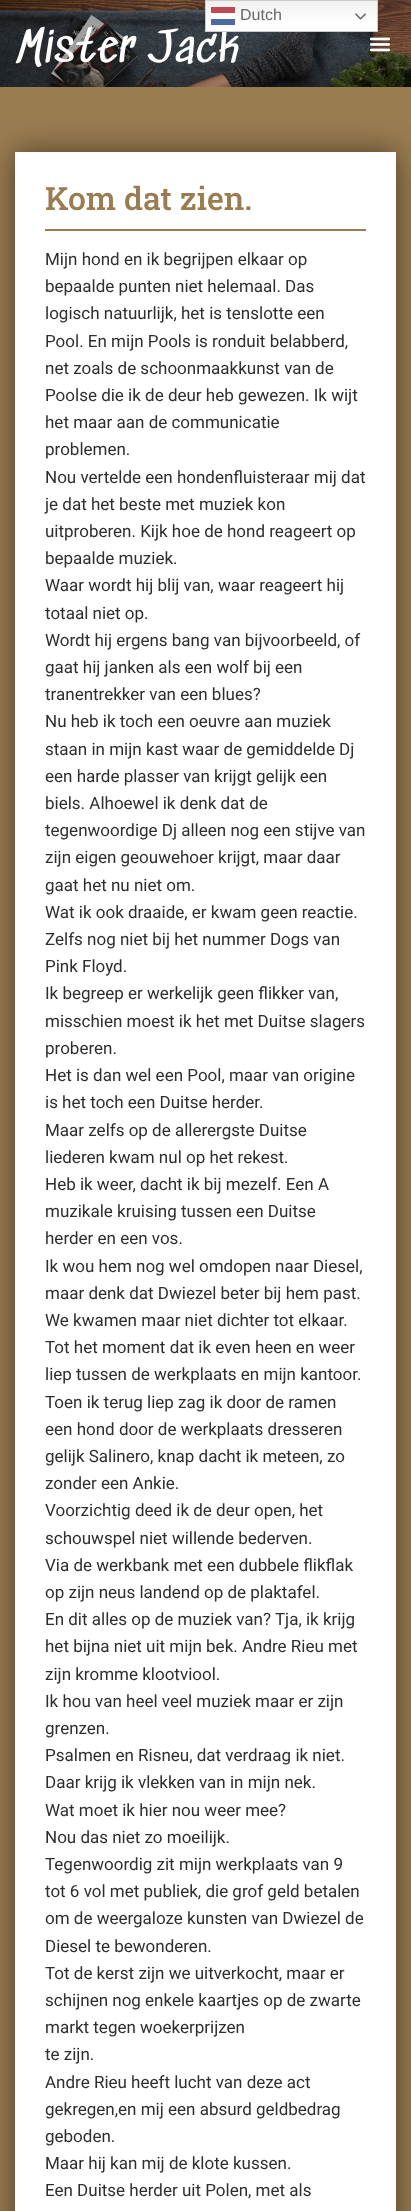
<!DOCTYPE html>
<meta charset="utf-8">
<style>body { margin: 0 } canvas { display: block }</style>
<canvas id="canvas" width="411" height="2211"></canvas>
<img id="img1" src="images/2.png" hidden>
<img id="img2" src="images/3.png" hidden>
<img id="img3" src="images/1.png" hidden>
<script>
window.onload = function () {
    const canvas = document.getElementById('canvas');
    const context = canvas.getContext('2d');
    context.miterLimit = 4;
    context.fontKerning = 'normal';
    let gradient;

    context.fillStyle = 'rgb(154, 124, 81)';
    context.fillRect(0, 0, 411, 2211);
    context.drawImage(document.getElementById('img1'), 0, 0, 411, 87);
    context.drawImage(document.getElementById('img2'), 369, 37, 22, 15);
    context.fillStyle = 'rgba(0, 0, 0, 0.5)';
    context.filter = 'blur(15px)';
    context.beginPath();
    context.rect(15, 152, 381, 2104);
    context.fill();
    context.filter = 'none';
    context.fillStyle = 'rgb(255, 255, 255)';
    context.fillRect(15, 152, 381, 2059);
    context.fillStyle = 'rgb(154, 124, 81)';
    context.fillRect(45, 229, 321, 2);
    context.letterSpacing = '1.25px';
    context.font = '42px Sedgwick Ave';
    context.fillStyle = 'rgb(255, 255, 255)';
    context.fillText('Mister Jack', 15, 64);
    gradient = context.createLinearGradient(292, 0, 292, 32);
    gradient.addColorStop(0, 'rgb(239, 239, 239)');
    gradient.addColorStop(0.7, 'rgb(255, 255, 255)');
    context.fillStyle = gradient;
    context.fillRect(206, 1, 171, 30);
    context.strokeStyle = 'rgb(204, 204, 204)';
    context.strokeRect(205.5, 0.5, 172, 31);
    context.drawImage(document.getElementById('img3'), 355, 13, 11, 7);
    context.fillStyle = 'rgb(190, 73, 83)';
    context.fillRect(211, 7, 24, 6);
    context.fillStyle = 'rgb(77, 107, 162)';
    context.fillRect(211, 19, 24, 6);
    context.fillStyle = 'rgba(255, 255, 255, 0.8)';
    context.fillRect(211, 13, 24, 4);
    context.letterSpacing = '0px';
    context.font = '16px Liberation Sans';
    context.fillStyle = 'rgb(102, 102, 102)';
    context.fillText('Dutch', 240, 20);
    context.font = '500 32px Roboto Slab';
    context.fillStyle = 'rgb(154, 124, 81)';
    context.fillText('Kom dat zien.', 45, 210);
    context.font = '17px Roboto';
    context.fillStyle = 'rgb(46, 46, 46)';
    context.fillText('Mijn hond en ik begrijpen elkaar op', 45, 265);
    context.fillText('bepaalde punten niet helemaal. Das', 45, 292);
    context.fillText('logisch natuurlijk, het is tenslotte een', 45, 319);
    context.fillText('Pool. En mijn Pools is ronduit belabberd,', 45, 347);
    context.fillText('net zoals de schoonmaakkunst van de', 45, 374);
    context.fillText('Poolse die ik de deur heb gewezen. Ik wijt', 45, 401);
    context.fillText('het maar aan de communicatie', 45, 428);
    context.fillText('problemen.', 45, 455);
    context.fillText('Nou vertelde een hondenfluisteraar mij dat', 45, 483);
    context.fillText('je dat het beste met muziek kon', 45, 510);
    context.fillText('uitproberen. Kijk hoe de hond reageert op', 45, 537);
    context.fillText('bepaalde muziek.', 45, 564);
    context.fillText('Waar wordt hij blij van, waar reageert hij', 45, 591);
    context.fillText('totaal niet op.', 45, 619);
    context.fillText('Wordt hij ergens bang van bijvoorbeeld, of', 45, 646);
    context.fillText('gaat hij janken als een wolf bij een', 45, 673);
    context.fillText('tranentrekker van een blues?', 45, 700);
    context.fillText('Nu heb ik toch een oeuvre aan muziek', 45, 727);
    context.fillText('staan in mijn kast waar de gemiddelde Dj', 45, 755);
    context.fillText('een harde plasser van krijgt gelijk een', 45, 782);
    context.fillText('biels. Alhoewel ik denk dat de', 45, 809);
    context.fillText('tegenwoordige Dj alleen nog een stijve van', 45, 836);
    context.fillText('zijn eigen geouwehoer krijgt, maar daar', 45, 863);
    context.fillText('gaat het nu niet om.', 45, 891);
    context.fillText('Wat ik ook draaide, er kwam geen reactie.', 45, 918);
    context.fillText('Zelfs nog niet bij het nummer Dogs van', 45, 945);
    context.fillText('Pink Floyd.', 45, 972);
    context.fillText('Ik begreep er werkelijk geen flikker van,', 45, 999);
    context.fillText('misschien moest ik het met Duitse slagers', 45, 1027);
    context.fillText('proberen.', 45, 1054);
    context.fillText('Het is dan wel een Pool, maar van origine', 45, 1081);
    context.fillText('is het toch een Duitse herder.', 45, 1108);
    context.fillText('Maar zelfs op de allerergste Duitse', 45, 1136);
    context.fillText('liederen kwam nul op het rekest.', 45, 1163);
    context.fillText('Heb ik weer, dacht ik bij mezelf. Een A', 45, 1190);
    context.fillText('muzikale kruising tussen een Duitse', 45, 1217);
    context.fillText('herder en een vos.', 45, 1244);
    context.fillText('Ik wou hem nog wel omdopen naar Diesel,', 45, 1272);
    context.fillText('maar denk dat Dwiezel beter bij hem past.', 45, 1299);
    context.fillText('We kwamen maar niet dichter tot elkaar.', 45, 1326);
    context.fillText('Tot het moment dat ik even heen en weer', 45, 1353);
    context.fillText('liep tussen de werkplaats en mijn kantoor.', 45, 1380);
    context.fillText('Toen ik terug liep zag ik door de ramen', 45, 1408);
    context.fillText('een hond door de werkplaats dresseren', 45, 1435);
    context.fillText('gelijk Salinero, knap dacht ik meteen, zo', 45, 1462);
    context.fillText('zonder een Ankie.', 45, 1489);
    context.fillText('Voorzichtig deed ik de deur open, het', 45, 1516);
    context.fillText('schouwspel niet willende bederven.', 45, 1544);
    context.fillText('Via de werkbank met een dubbele flikflak', 45, 1571);
    context.fillText('op zijn neus landend op de plaktafel.', 45, 1598);
    context.fillText('En dit alles op de muziek van? Tja, ik krijg', 45, 1625);
    context.fillText('het bijna niet uit mijn bek. Andre Rieu met', 45, 1652);
    context.fillText('zijn kromme klootviool.', 45, 1680);
    context.fillText('Ik hou van heel veel muziek maar er zijn', 45, 1707);
    context.fillText('grenzen.', 45, 1734);
    context.fillText('Psalmen en Risneu, dat verdraag ik niet.', 45, 1761);
    context.fillText('Daar krijg ik vlekken van in mijn nek.', 45, 1788);
    context.fillText('Wat moet ik hier nou weer mee?', 45, 1816);
    context.fillText('Nou das niet zo moeilijk.', 45, 1843);
    context.fillText('Tegenwoordig zit mijn werkplaats van 9', 45, 1870);
    context.fillText('tot 6 vol met publiek, die grof geld betalen', 45, 1897);
    context.fillText('om de weergaloze kunsten van Dwiezel de', 45, 1924);
    context.fillText('Diesel te bewonderen.', 45, 1952);
    context.fillText('Tot de kerst zijn we uitverkocht, maar er', 45, 1979);
    context.fillText('schijnen nog enkele kaartjes op de zwarte', 45, 2006);
    context.fillText('markt tegen woekerprijzen', 45, 2033);
    context.fillText('te zijn.', 45, 2060);
    context.fillText('Andre Rieu heeft lucht van deze act', 45, 2088);
    context.fillText('gekregen,en mij een absurd geldbedrag', 45, 2115);
    context.fillText('geboden.', 45, 2142);
    context.fillText('Maar hij kan mij de klote kussen.', 45, 2169);
    context.fillText('Een Duitse herder uit Polen, met als', 45, 2196);
};
</script>
